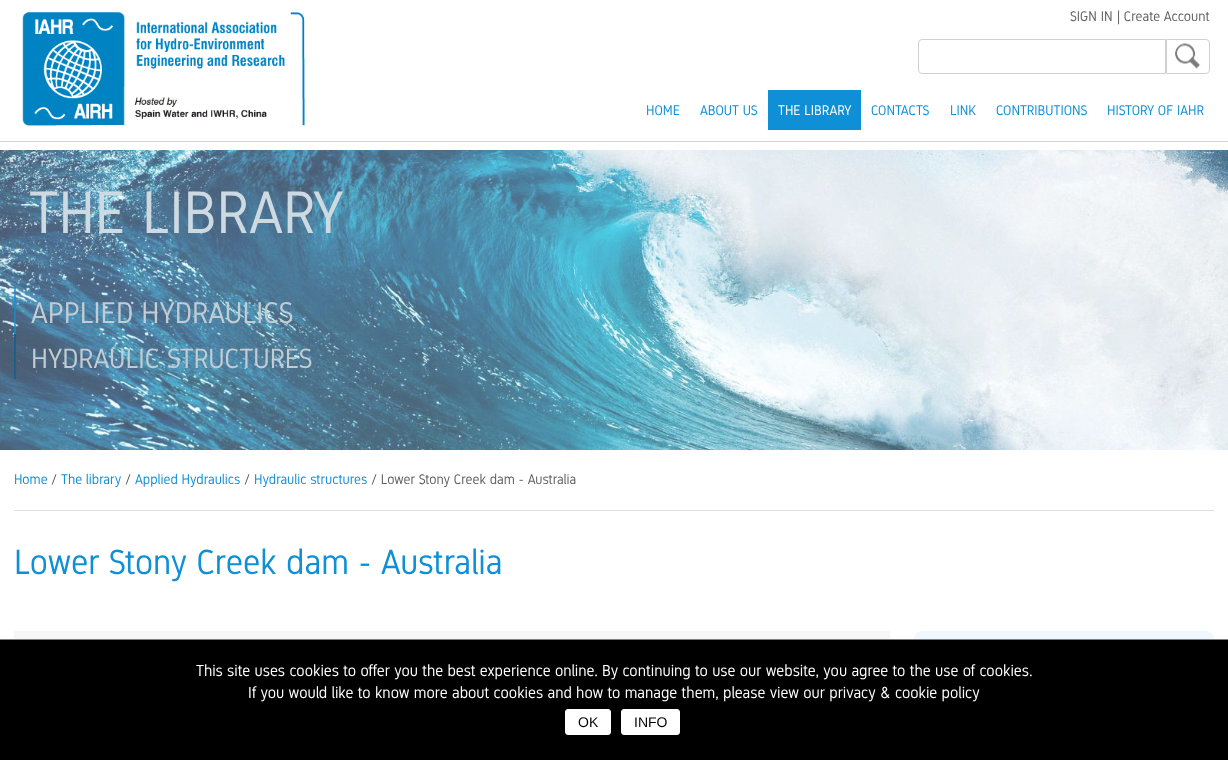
<!DOCTYPE html>
<meta charset="utf-8">
<style>body { margin: 0 } canvas { display: block }</style>
<canvas id="canvas" width="1228" height="760"></canvas>
<img id="img1" src="images/1.png" hidden>
<img id="img2" src="images/2.png" hidden>
<img id="img3" src="images/3.png" hidden>
<script>
window.onload = function () {
    const canvas = document.getElementById('canvas');
    const context = canvas.getContext('2d');
    context.miterLimit = 4;
    context.fontKerning = 'normal';

    context.fillStyle = 'rgb(255, 255, 255)';
    context.fillRect(0, 0, 1228, 760);
    context.drawImage(document.getElementById('img1'), 22, 12, 283, 114);
    context.beginPath();
    context.roundRect(918.5, 39.5, 247, 34, [3.5, 0, 0, 3.5]);
    context.strokeStyle = 'rgb(208, 208, 208)';
    context.stroke();
    context.drawImage(document.getElementById('img2'), 1175, 43, 26, 26);
    context.beginPath();
    context.roundRect(1166.5, 39.5, 43, 34, [0, 3.5, 3.5, 0]);
    context.stroke();
    context.fillStyle = 'rgb(15, 143, 214)';
    context.fillRect(768, 90, 93, 40);
    context.fillStyle = 'rgb(212, 212, 212)';
    context.fillRect(0, 141, 1228, 1);
    context.drawImage(document.getElementById('img3'), 0, 150, 1228, 300);
    context.fillStyle = 'rgba(15, 143, 214, 0.71)';
    context.fillRect(14, 287, 2, 47);
    context.fillStyle = 'rgba(10, 96, 145, 0.71)';
    context.fillRect(14, 334, 2, 45);
    context.fillStyle = 'rgb(223, 223, 223)';
    context.fillRect(14, 510, 1200, 1);
    context.fillStyle = 'rgb(246, 246, 246)';
    context.fillRect(14, 631, 876, 8);
    context.fillStyle = 'rgb(240, 248, 255)';
    context.beginPath();
    context.moveTo(922, 631);
    context.lineTo(1206, 631);
    context.bezierCurveTo(1210.5, 631, 1214, 634.5, 1214, 639);
    context.lineTo(1214, 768);
    context.lineTo(922, 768);
    context.bezierCurveTo(917.5, 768, 914, 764.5, 914, 760);
    context.lineTo(914, 639);
    context.bezierCurveTo(914, 634.5, 917.5, 631, 922, 631);
    context.closePath();
    context.fill();
    context.fillStyle = 'rgb(0, 0, 0)';
    context.fillRect(0, 640, 1228, 120);
    context.fillStyle = 'rgb(128, 128, 128)';
    context.fillRect(0, 639, 1228, 1);
    context.fillStyle = 'rgb(255, 255, 255)';
    context.beginPath();
    context.roundRect(565.5, 709.5, 45, 25, 2.5);
    context.fill();
    context.strokeStyle = 'rgb(255, 255, 255)';
    context.stroke();
    context.beginPath();
    context.roundRect(621.5, 709.5, 58, 25, 2.5);
    context.fill();
    context.stroke();
    context.font = '14px Gidole';
    context.fillStyle = 'rgb(96, 96, 96)';
    context.fillText('SIGN IN', 1070, 21);
    context.fillText('| Create Account', 1117, 21);
    context.fillStyle = 'rgb(15, 143, 214)';
    context.fillText('HOME', 646, 115);
    context.fillText('ABOUT US', 700, 115);
    context.fillStyle = 'rgb(255, 255, 255)';
    context.fillText('THE LIBRARY', 778, 115);
    context.fillStyle = 'rgb(15, 143, 214)';
    context.fillText('CONTACTS', 871, 115);
    context.fillText('LINK', 950, 115);
    context.fillText('CONTRIBUTIONS', 996, 115);
    context.fillText('HISTORY OF IAHR', 1107, 115);
    context.font = '60px Gidole';
    context.fillStyle = 'rgb(206, 218, 226)';
    context.fillText('THE LIBRARY', 29, 233);
    context.font = '30px Gidole';
    context.fillStyle = 'rgb(194, 204, 213)';
    context.fillText('APPLIED HYDRAULICS', 31, 323);
    context.font = '28px Gidole';
    context.fillText('HYDRAULIC STRUCTURES', 31, 368);
    context.font = '14px Gidole';
    context.fillStyle = 'rgb(15, 143, 214)';
    context.fillText('Home', 14, 484);
    context.fillStyle = 'rgb(96, 96, 96)';
    context.fillText('/', 51, 484);
    context.fillStyle = 'rgb(15, 143, 214)';
    context.fillText('The library', 61, 484);
    context.fillStyle = 'rgb(96, 96, 96)';
    context.fillText('/', 125, 484);
    context.fillStyle = 'rgb(15, 143, 214)';
    context.fillText('Applied Hydraulics', 135, 484);
    context.fillStyle = 'rgb(96, 96, 96)';
    context.fillText('/', 244, 484);
    context.fillStyle = 'rgb(15, 143, 214)';
    context.fillText('Hydraulic structures', 254, 484);
    context.fillStyle = 'rgb(96, 96, 96)';
    context.fillText('/ Lower Stony Creek dam - Australia', 371, 484);
    context.font = '35px Gidole';
    context.fillStyle = 'rgb(15, 143, 214)';
    context.fillText('Lower Stony Creek dam - Australia', 14, 574);
    context.font = '16px Gidole';
    context.fillStyle = 'rgb(255, 255, 255)';
    context.fillText('This site uses cookies to offer you the best experience online. By continuing to use our website, you agree to the use of cookies.', 196, 676);
    context.fillText('If you would like to know more about cookies and how to manage them, please view our privacy & cookie policy', 248, 698);
    context.font = '14px Liberation Sans';
    context.fillStyle = 'rgb(0, 0, 0)';
    context.fillText('OK', 578, 727);
    context.fillText('INFO', 634, 727);
};
</script>
